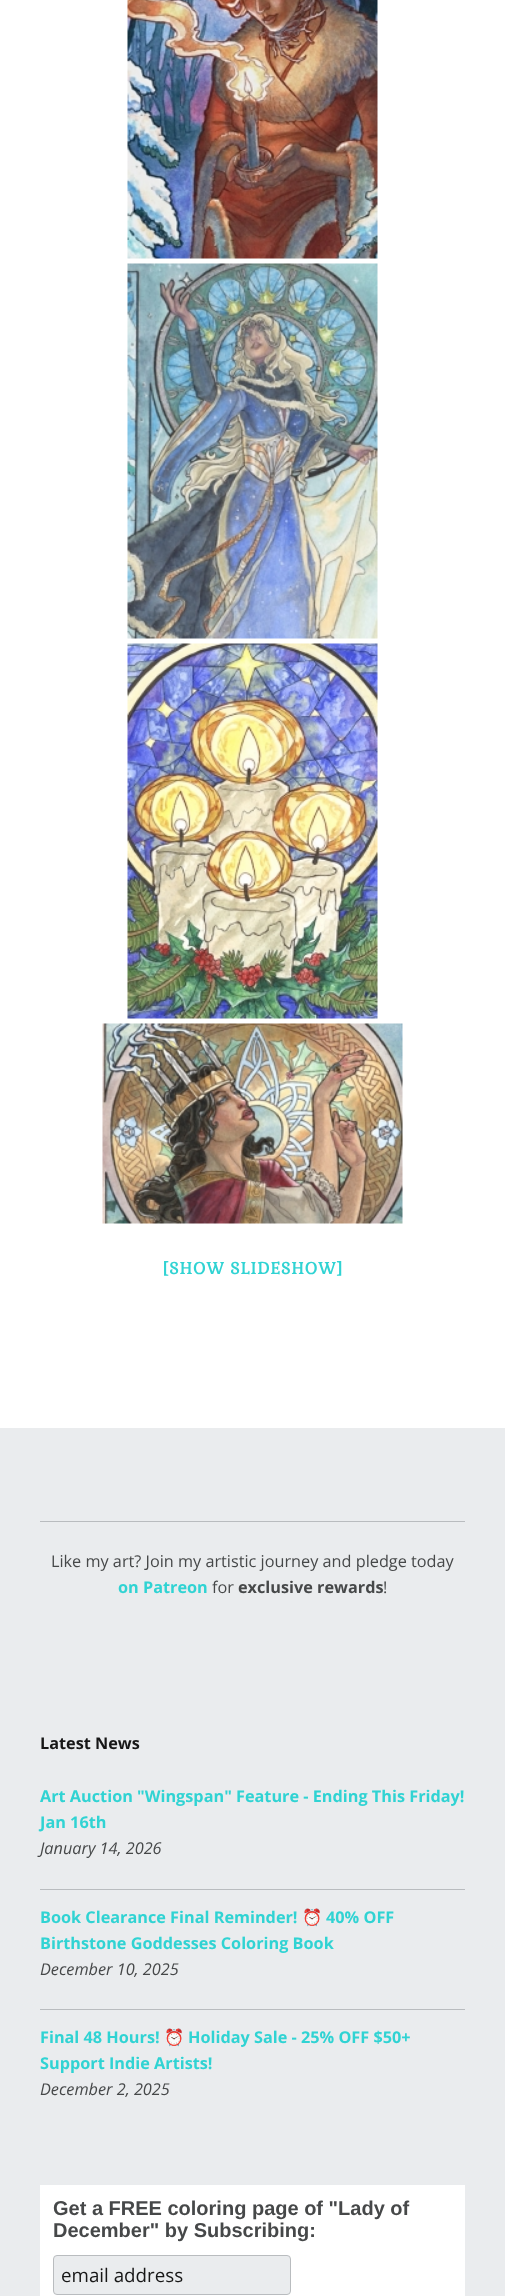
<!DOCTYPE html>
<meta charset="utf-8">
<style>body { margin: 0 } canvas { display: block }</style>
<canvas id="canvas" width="505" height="2296"></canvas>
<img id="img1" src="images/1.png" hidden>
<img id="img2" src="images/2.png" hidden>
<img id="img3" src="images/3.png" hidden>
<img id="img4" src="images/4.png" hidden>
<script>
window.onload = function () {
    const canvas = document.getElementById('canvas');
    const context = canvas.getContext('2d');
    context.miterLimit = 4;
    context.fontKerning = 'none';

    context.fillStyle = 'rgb(255, 255, 255)';
    context.fillRect(0, 0, 505, 2296);
    context.drawImage(document.getElementById('img1'), 127, 0, 251, 259);
    context.drawImage(document.getElementById('img2'), 127, 263, 251, 376);
    context.drawImage(document.getElementById('img3'), 127, 643, 251, 376);
    context.drawImage(document.getElementById('img4'), 102, 1023, 301, 201);
    context.fillStyle = 'rgb(234, 236, 238)';
    context.fillRect(0, 1428, 505, 868);
    context.fillStyle = 'rgb(185, 188, 191)';
    context.fillRect(40, 1521, 425, 1);
    context.fillRect(40, 1889, 425, 1);
    context.fillRect(40, 2009, 425, 1);
    context.fillStyle = 'rgb(255, 255, 255)';
    context.fillRect(40, 2185, 425, 111);
    context.fillStyle = 'rgb(234, 236, 238)';
    context.beginPath();
    context.roundRect(53.5, 2255.5, 237, 39, 3.5);
    context.fill();
    context.strokeStyle = 'rgb(185, 188, 191)';
    context.stroke();
    context.letterSpacing = '1px';
    context.font = 'bold 16.25px Gabriela';
    context.fillStyle = 'rgb(48, 211, 211)';
    context.fillText('[SHOW SLIDESHOW]', 162, 1274);
    context.letterSpacing = '0px';
    context.font = '16.25px Open Sans';
    context.fillStyle = 'rgb(70, 72, 73)';
    context.fillText('Like my art? Join my artistic journey and pledge today', 51, 1567);
    context.font = 'bold 16.25px Open Sans';
    context.fillStyle = 'rgb(48, 211, 211)';
    context.fillText('on Patreon', 118, 1593);
    context.font = '16.25px Open Sans';
    context.fillStyle = 'rgb(70, 72, 73)';
    context.fillText('for', 212, 1593);
    context.font = 'bold 16.25px Open Sans';
    context.fillText('exclusive rewards', 238, 1593);
    context.font = '16.25px Open Sans';
    context.fillText('!', 383, 1593);
    context.font = 'bold 16.25px Open Sans';
    context.fillStyle = 'rgb(23, 23, 23)';
    context.fillText('Latest News', 40, 1749);
    context.fillStyle = 'rgb(48, 211, 211)';
    context.fillText('Art Auction "Wingspan" Feature - Ending This Friday!', 40, 1802);
    context.fillText('Jan 16th', 40, 1828);
    context.font = 'italic 16.25px Open Sans';
    context.fillStyle = 'rgb(70, 72, 73)';
    context.fillText('January 14, 2026', 40, 1854);
    context.font = 'bold 16.25px Open Sans';
    context.fillStyle = 'rgb(48, 211, 211)';
    context.fillText('Book Clearance Final Reminder!', 40, 1923);
    context.font = 'bold 16.25px Noto Color Emoji';
    context.fillText('⏰', 302, 1923);
    context.font = 'bold 16.25px Open Sans';
    context.fillText('40% OFF', 326, 1923);
    context.fillText('Birthstone Goddesses Coloring Book', 40, 1949);
    context.font = 'italic 16.25px Open Sans';
    context.fillStyle = 'rgb(70, 72, 73)';
    context.fillText('December 10, 2025', 40, 1975);
    context.font = 'bold 16.25px Open Sans';
    context.fillStyle = 'rgb(48, 211, 211)';
    context.fillText('Final 48 Hours!', 40, 2043);
    context.font = 'bold 16.25px Noto Color Emoji';
    context.fillText('⏰', 164, 2043);
    context.font = 'bold 16.25px Open Sans';
    context.fillText('Holiday Sale - 25% OFF $50+', 188, 2043);
    context.fillText('Support Indie Artists!', 40, 2069);
    context.font = 'italic 16.25px Open Sans';
    context.fillStyle = 'rgb(70, 72, 73)';
    context.fillText('December 2, 2025', 40, 2095);
    context.font = 'bold 20px Liberation Sans';
    context.fillText('Get a FREE coloring page of "Lady of', 53, 2215);
    context.fillText('December" by Subscribing:', 53, 2237);
    context.font = '18.75px Open Sans';
    context.fillStyle = 'rgb(23, 23, 23)';
    context.fillText('email address', 61, 2282);
};
</script>
